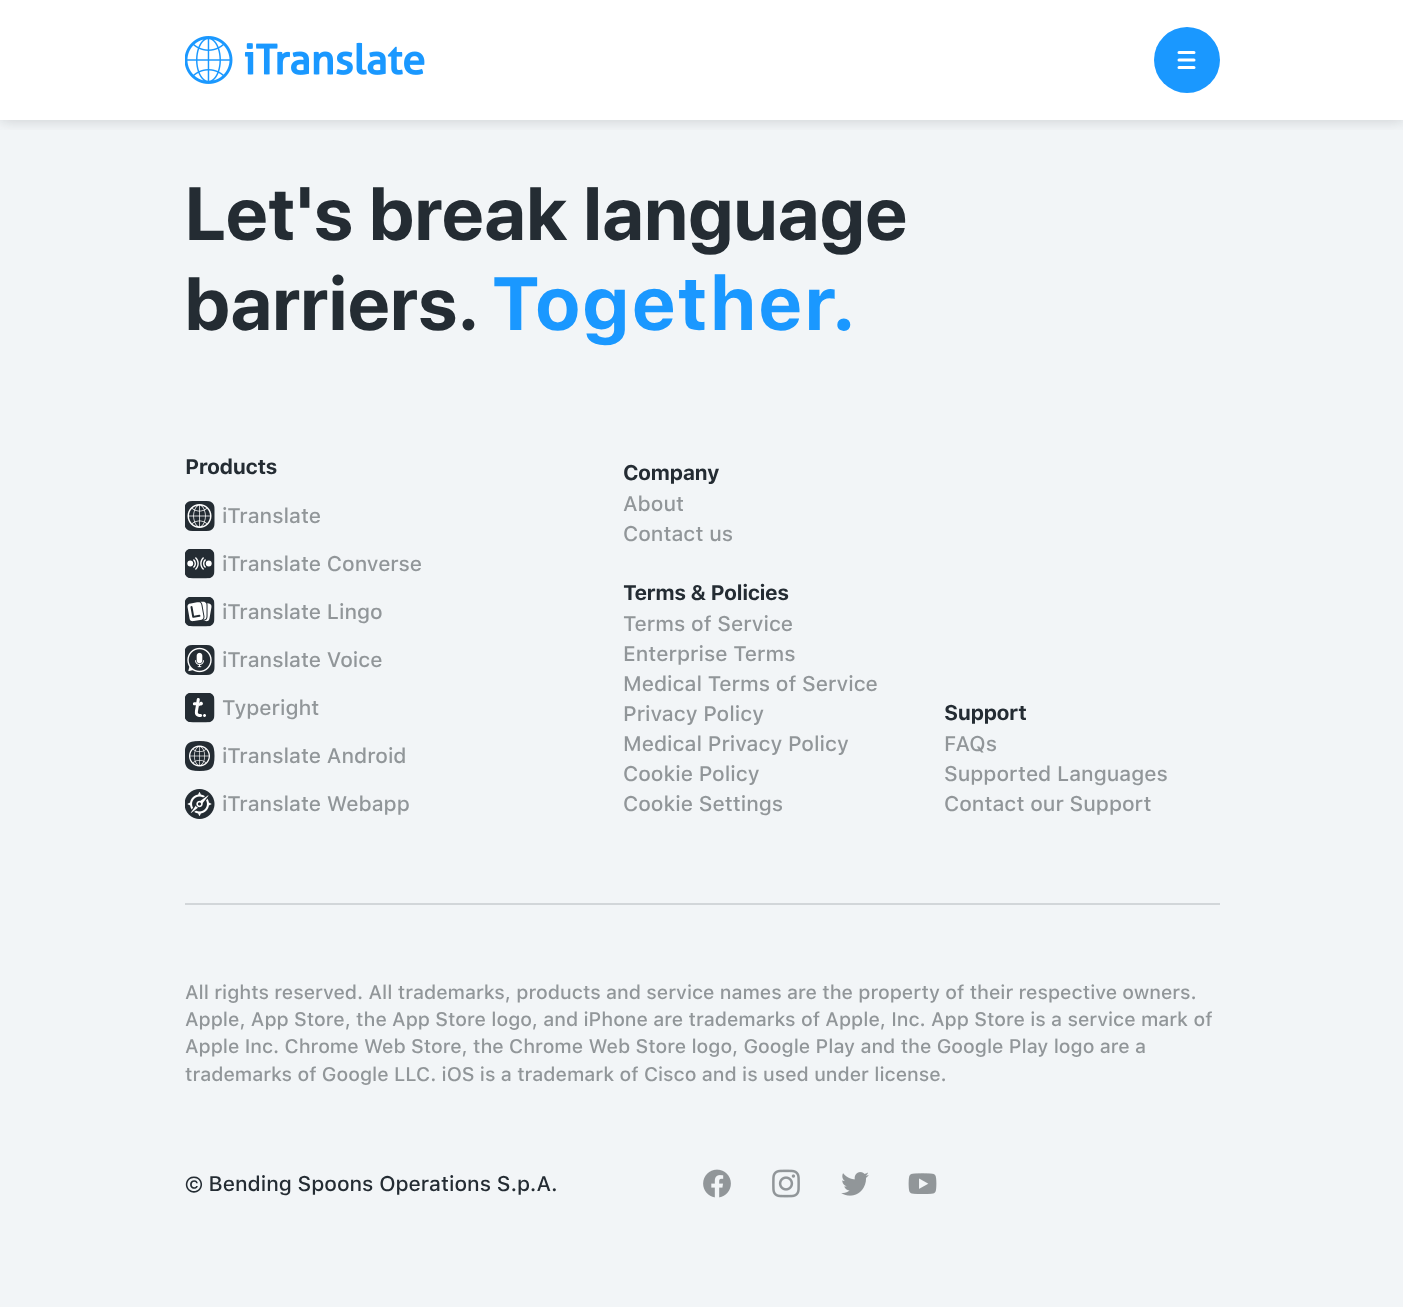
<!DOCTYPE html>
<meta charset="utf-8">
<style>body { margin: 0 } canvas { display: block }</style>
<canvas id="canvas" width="1403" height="1307"></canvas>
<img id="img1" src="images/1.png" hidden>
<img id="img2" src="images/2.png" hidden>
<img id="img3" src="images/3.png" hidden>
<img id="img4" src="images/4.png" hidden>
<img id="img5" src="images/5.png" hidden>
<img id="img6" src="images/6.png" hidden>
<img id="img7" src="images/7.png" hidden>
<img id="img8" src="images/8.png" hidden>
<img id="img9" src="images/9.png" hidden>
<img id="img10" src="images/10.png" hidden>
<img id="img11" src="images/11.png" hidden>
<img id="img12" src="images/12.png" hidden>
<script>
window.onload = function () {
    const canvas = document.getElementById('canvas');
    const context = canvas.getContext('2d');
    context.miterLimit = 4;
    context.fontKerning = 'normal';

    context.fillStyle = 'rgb(242, 245, 247)';
    context.fillRect(0, 0, 1403, 1307);
    context.fillStyle = 'rgb(255, 255, 255)';
    context.fillRect(0, 0, 1403, 120);
    context.save();
    context.beginPath();
    context.rect(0, 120, 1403, 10);
    context.clip();
    context.fillStyle = 'rgba(36, 44, 51, 0.2)';
    context.filter = 'blur(7.5px)';
    context.beginPath();
    context.rect(0, 0, 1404, 120);
    context.fill();
    context.filter = 'none';
    context.restore();
    context.drawImage(document.getElementById('img1'), 185, 36, 240, 48);
    context.fillStyle = 'rgb(26, 152, 255)';
    context.beginPath();
    context.arc(1187, 60, 33, 0, 2 * Math.PI);
    context.fill();
    context.beginPath();
    context.moveTo(1179, 60);
    context.lineTo(1194, 60);
    context.moveTo(1179, 52.5);
    context.lineTo(1194, 52.5);
    context.moveTo(1179, 67.5);
    context.lineTo(1194, 67.5);
    context.strokeStyle = 'rgb(255, 255, 255)';
    context.lineWidth = 3;
    context.lineCap = 'round';
    context.stroke();
    context.fillStyle = 'rgb(210, 214, 217)';
    context.fillRect(185, 903, 1035, 2);
    context.drawImage(document.getElementById('img2'), 185, 501, 30, 30);
    context.drawImage(document.getElementById('img3'), 185, 549, 30, 30);
    context.drawImage(document.getElementById('img4'), 185, 597, 30, 30);
    context.drawImage(document.getElementById('img5'), 185, 645, 30, 30);
    context.drawImage(document.getElementById('img6'), 185, 693, 30, 30);
    context.drawImage(document.getElementById('img7'), 185, 741, 30, 30);
    context.drawImage(document.getElementById('img8'), 185, 789, 30, 30);
    context.drawImage(document.getElementById('img9'), 703, 1169, 28, 29);
    context.drawImage(document.getElementById('img10'), 772, 1169, 28, 29);
    context.drawImage(document.getElementById('img11'), 841, 1172, 28, 24);
    context.drawImage(document.getElementById('img12'), 908, 1173, 29, 21);
    context.letterSpacing = '0.9px';
    context.font = 'bold 75px SF Pro Display';
    context.fillStyle = 'rgb(36, 44, 51)';
    context.fillText('Let\'s break language', 185, 240);
    context.fillText('barriers.', 185, 330);
    context.font = 'bold 75px SF Pro Text';
    context.fillStyle = 'rgb(26, 152, 255)';
    context.fillText('Together.', 491, 330);
    context.letterSpacing = '-0.5px';
    context.font = 'bold 21px SF Pro Text';
    context.fillStyle = 'rgb(36, 44, 51)';
    context.fillText('Products', 185, 474);
    context.letterSpacing = '0px';
    context.font = '500 21px SF Pro Text';
    context.fillStyle = 'rgb(145, 150, 153)';
    context.fillText('iTranslate', 222, 523);
    context.fillText('iTranslate Converse', 222, 571);
    context.fillText('iTranslate Lingo', 222, 619);
    context.fillText('iTranslate Voice', 222, 667);
    context.fillText('Typeright', 222, 715);
    context.fillText('iTranslate Android', 222, 763);
    context.fillText('iTranslate Webapp', 222, 811);
    context.letterSpacing = '-0.5px';
    context.font = 'bold 21px SF Pro Text';
    context.fillStyle = 'rgb(36, 44, 51)';
    context.fillText('Company', 623, 480);
    context.letterSpacing = '0px';
    context.font = '500 21px SF Pro Text';
    context.fillStyle = 'rgb(145, 150, 153)';
    context.fillText('About', 623, 511);
    context.fillText('Contact us', 623, 541);
    context.letterSpacing = '-0.5px';
    context.font = 'bold 21px SF Pro Text';
    context.fillStyle = 'rgb(36, 44, 51)';
    context.fillText('Terms & Policies', 623, 600);
    context.letterSpacing = '0px';
    context.font = '500 21px SF Pro Text';
    context.fillStyle = 'rgb(145, 150, 153)';
    context.fillText('Terms of Service', 623, 631);
    context.fillText('Enterprise Terms', 623, 661);
    context.fillText('Medical Terms of Service', 623, 691);
    context.fillText('Privacy Policy', 623, 721);
    context.fillText('Medical Privacy Policy', 623, 751);
    context.fillText('Cookie Policy', 623, 781);
    context.fillText('Cookie Settings', 623, 811);
    context.letterSpacing = '-0.5px';
    context.font = 'bold 21px SF Pro Text';
    context.fillStyle = 'rgb(36, 44, 51)';
    context.fillText('Support', 944, 720);
    context.letterSpacing = '0px';
    context.font = '500 21px SF Pro Text';
    context.fillStyle = 'rgb(145, 150, 153)';
    context.fillText('FAQs', 944, 751);
    context.fillText('Supported Languages', 944, 781);
    context.fillText('Contact our Support', 944, 811);
    context.font = '500 19.5px SF Pro Text';
    context.fillText('All rights reserved. All trademarks, products and service names are the property of their respective owners.', 185, 999);
    context.fillText('Apple, App Store, the App Store logo, and iPhone are trademarks of Apple, Inc. App Store is a service mark of', 185, 1026);
    context.fillText('Apple Inc. Chrome Web Store, the Chrome Web Store logo, Google Play and the Google Play logo are a', 185, 1053);
    context.fillText('trademarks of Google LLC. iOS is a trademark of Cisco and is used under license.', 185, 1081);
    context.font = '500 21px SF Pro Text';
    context.fillStyle = 'rgb(36, 44, 51)';
    context.fillText('© Bending Spoons Operations S.p.A.', 185, 1191);
};
</script>
